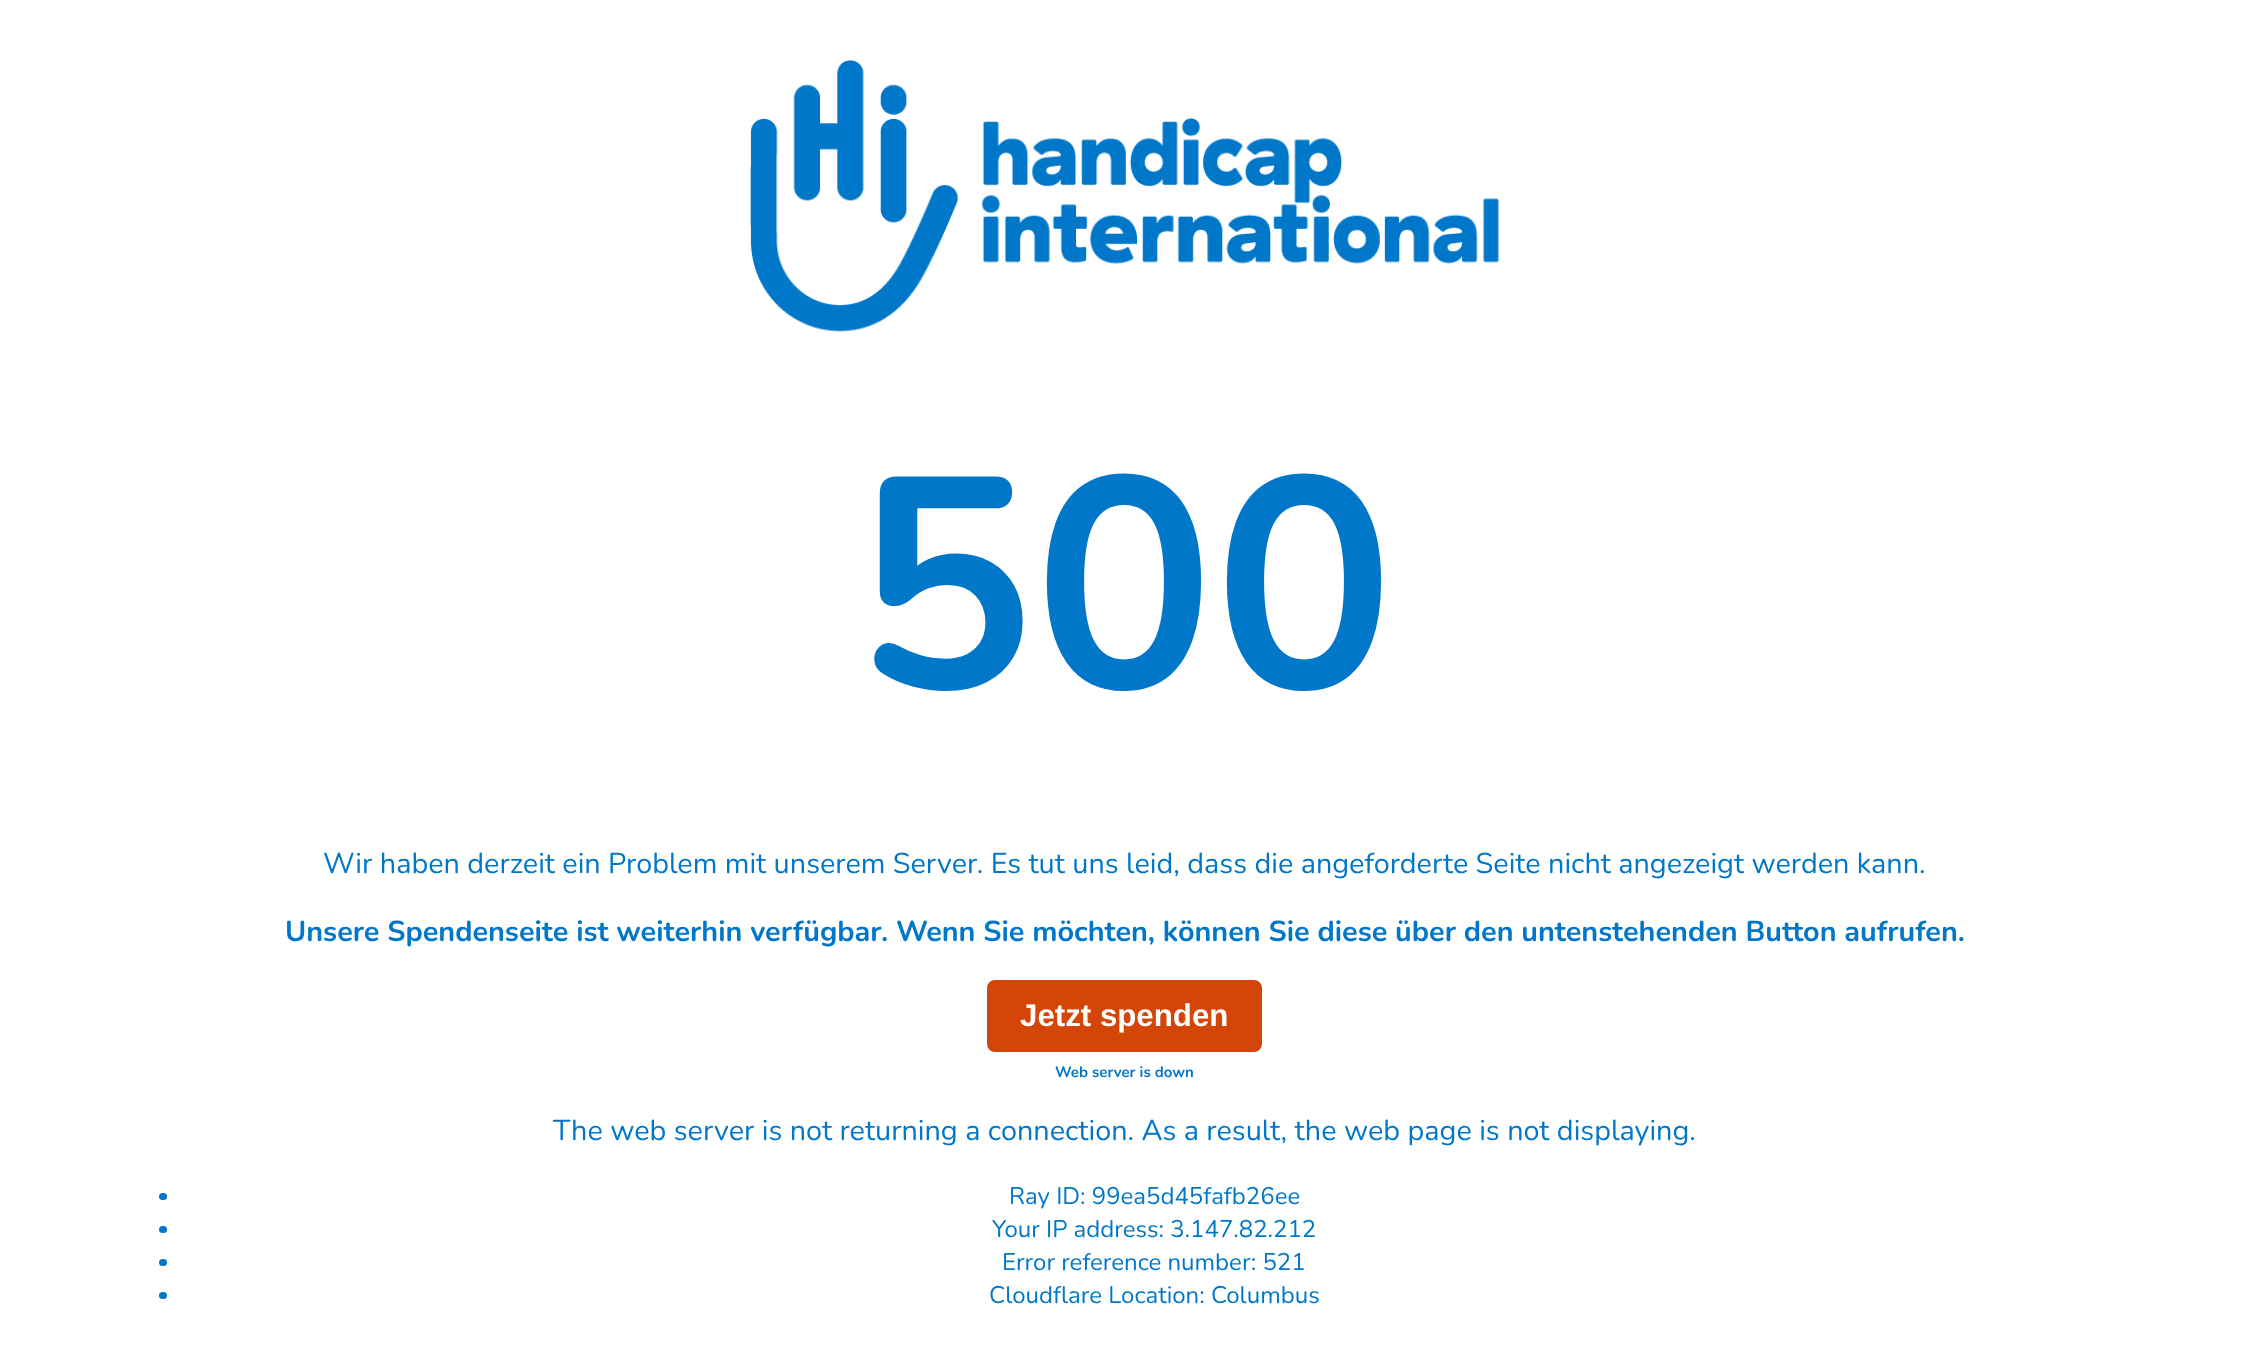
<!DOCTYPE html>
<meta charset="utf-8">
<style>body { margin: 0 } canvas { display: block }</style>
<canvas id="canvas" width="2248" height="1369"></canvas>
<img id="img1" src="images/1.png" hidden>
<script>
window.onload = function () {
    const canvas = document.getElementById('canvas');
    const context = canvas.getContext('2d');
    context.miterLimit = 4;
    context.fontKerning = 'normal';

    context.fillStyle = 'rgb(255, 255, 255)';
    context.fillRect(0, 0, 2248, 1369);
    context.drawImage(document.getElementById('img1'), 750, 59, 749, 273);
    context.fillStyle = 'rgb(211, 70, 7)';
    context.beginPath();
    context.roundRect(988.5, 981.5, 272, 69, 6.5);
    context.fill();
    context.strokeStyle = 'rgb(211, 70, 7)';
    context.lineWidth = 3;
    context.stroke();
    context.fillStyle = 'rgb(0, 119, 200)';
    context.beginPath();
    context.roundRect(159, 1193, 8, 7, 3.5);
    context.fill();
    context.beginPath();
    context.roundRect(159, 1226, 8, 7, 3.5);
    context.fill();
    context.beginPath();
    context.roundRect(159, 1259, 8, 7, 3.5);
    context.fill();
    context.beginPath();
    context.roundRect(159, 1292, 8, 7, 3.5);
    context.fill();
    context.font = 'bold 300px Nunito';
    context.fillText('500', 854, 688);
    context.font = '28.8px Nunito';
    context.fillText('Wir haben derzeit ein Problem mit unserem Server. Es tut uns leid, dass die angeforderte Seite nicht angezeigt werden kann.', 323, 873);
    context.font = 'bold 28.8px Nunito';
    context.fillText('Unsere Spendenseite ist weiterhin verfügbar. Wenn Sie möchten, können Sie diese über den untenstehenden Button aufrufen.', 285, 941);
    context.font = 'bold 31.25px Liberation Sans';
    context.fillStyle = 'rgb(255, 255, 255)';
    context.fillText('Jetzt spenden', 1020, 1026);
    context.font = 'bold 15px Nunito';
    context.fillStyle = 'rgb(0, 119, 200)';
    context.fillText('Web server is down', 1055, 1077);
    context.font = '28.8px Nunito';
    context.fillText('The web server is not returning a connection. As a result, the web page is not displaying.', 553, 1140);
    context.font = '24px Nunito';
    context.fillText('Ray ID: 99ea5d45fafb26ee', 1009, 1204);
    context.fillText('Your IP address: 3.147.82.212', 992, 1237);
    context.fillText('Error reference number: 521', 1002, 1270);
    context.fillText('Cloudflare Location: Columbus', 989, 1303);
};
</script>
